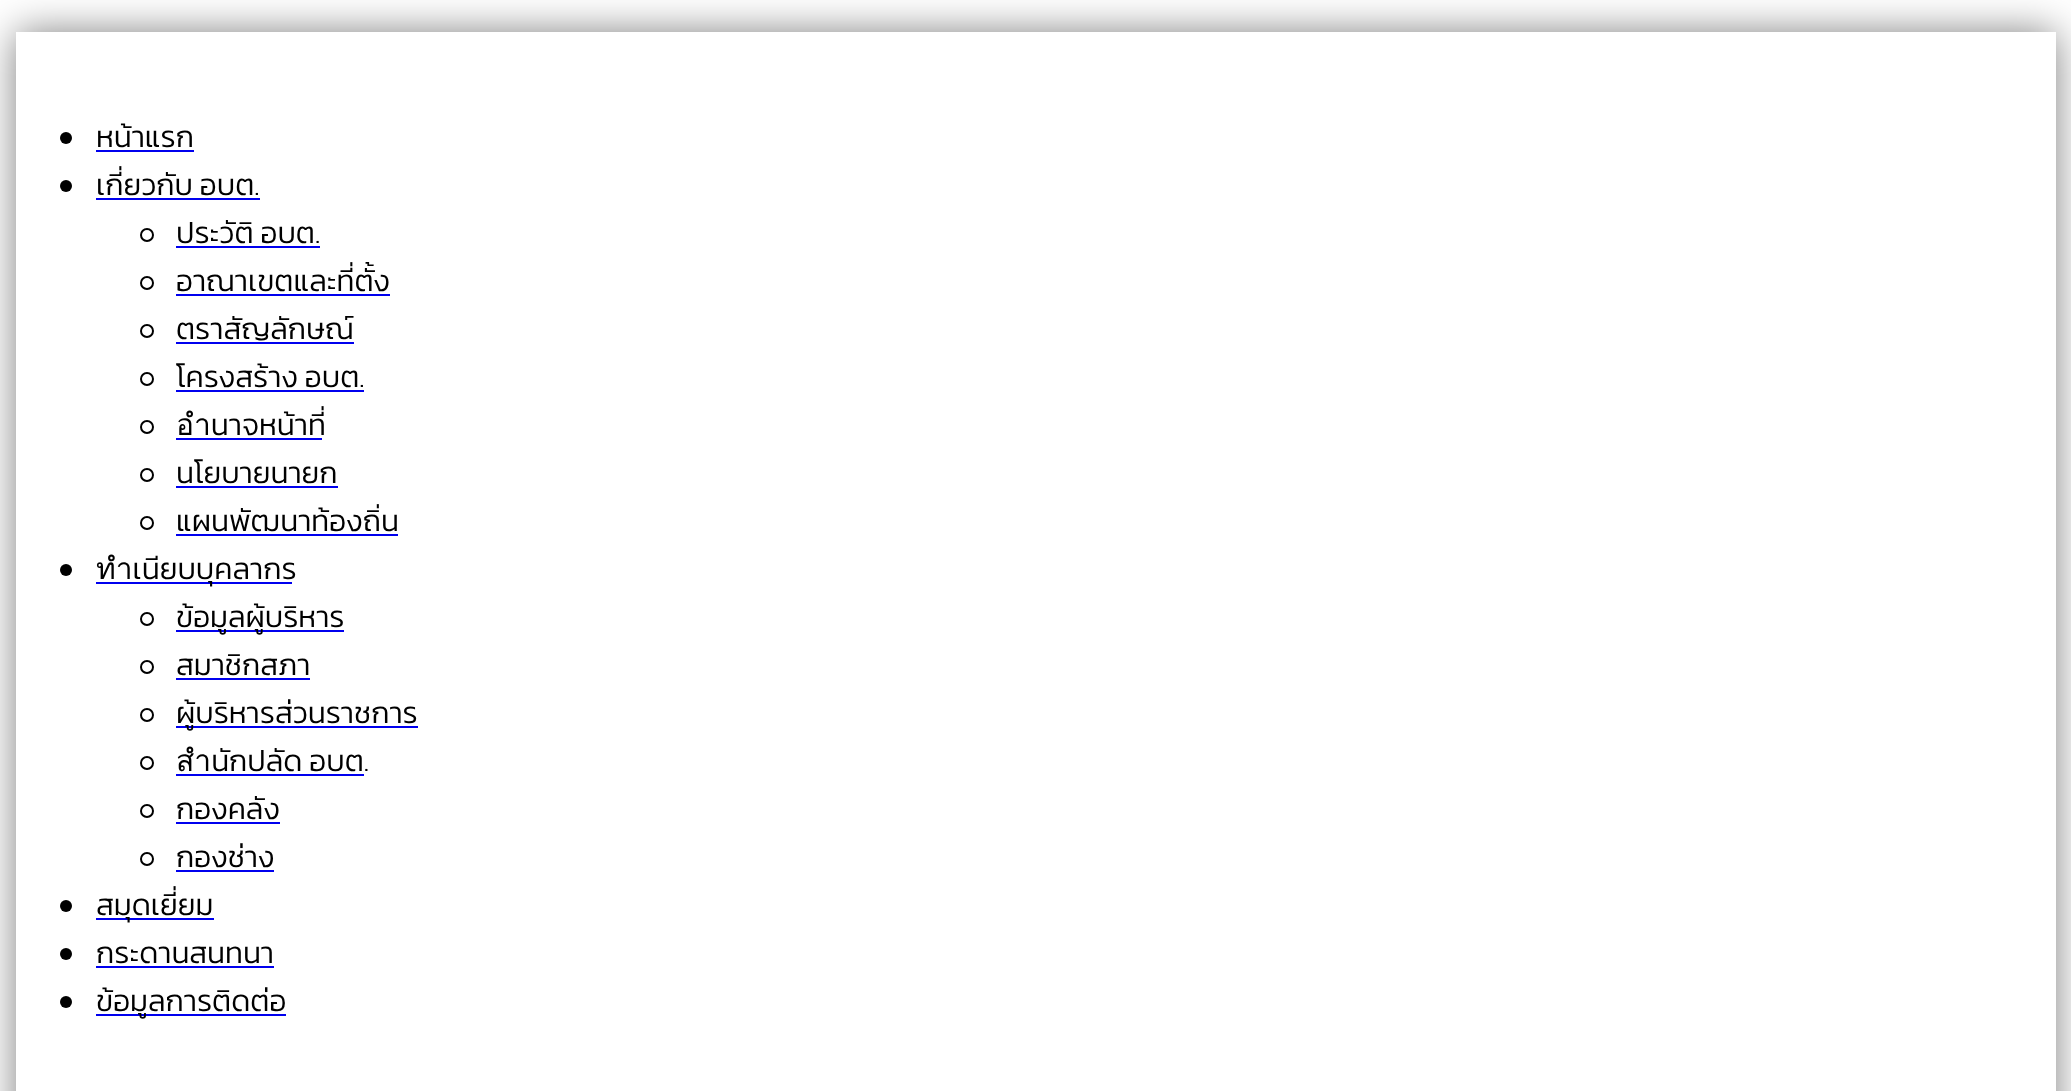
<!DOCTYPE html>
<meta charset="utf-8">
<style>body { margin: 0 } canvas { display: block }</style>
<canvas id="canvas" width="2071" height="1091"></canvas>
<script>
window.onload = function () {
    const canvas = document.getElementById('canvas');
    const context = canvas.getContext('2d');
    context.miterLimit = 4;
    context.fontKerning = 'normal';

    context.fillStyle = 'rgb(255, 255, 255)';
    context.fillRect(0, 0, 2071, 1091);
    context.save();
    context.beginPath();
    context.moveTo(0, 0);
    context.lineTo(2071, 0);
    context.lineTo(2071, 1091);
    context.lineTo(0, 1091);
    context.closePath();
    context.moveTo(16, 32);
    context.lineTo(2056, 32);
    context.lineTo(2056, 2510);
    context.lineTo(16, 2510);
    context.closePath();
    context.clip('evenodd');
    context.fillStyle = 'rgba(0, 0, 0, 0.5)';
    context.filter = 'blur(20px)';
    context.beginPath();
    context.rect(16, 32, 2040, 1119);
    context.fill();
    context.filter = 'none';
    context.restore();
    context.fillStyle = 'rgb(0, 0, 0)';
    context.beginPath();
    context.arc(66, 138, 6, 0, 2 * Math.PI);
    context.fill();
    context.fillStyle = 'rgb(0, 0, 238)';
    context.fillRect(96, 150, 98, 2);
    context.fillStyle = 'rgb(0, 0, 0)';
    context.beginPath();
    context.arc(66, 186, 6, 0, 2 * Math.PI);
    context.fill();
    context.fillStyle = 'rgb(0, 0, 238)';
    context.fillRect(96, 198, 164, 2);
    context.beginPath();
    context.arc(147, 235, 6, 0, 2 * Math.PI);
    context.strokeStyle = 'rgb(0, 0, 0)';
    context.lineWidth = 2;
    context.stroke();
    context.fillRect(176, 246, 144, 2);
    context.beginPath();
    context.arc(147, 283, 6, 0, 2 * Math.PI);
    context.stroke();
    context.fillRect(176, 294, 214, 2);
    context.beginPath();
    context.arc(147, 331, 6, 0, 2 * Math.PI);
    context.stroke();
    context.fillRect(176, 342, 178, 2);
    context.beginPath();
    context.arc(147, 379, 6, 0, 2 * Math.PI);
    context.stroke();
    context.fillRect(176, 390, 188, 2);
    context.beginPath();
    context.arc(147, 427, 6, 0, 2 * Math.PI);
    context.stroke();
    context.fillRect(176, 438, 146, 2);
    context.beginPath();
    context.arc(147, 475, 6, 0, 2 * Math.PI);
    context.stroke();
    context.fillRect(176, 486, 162, 2);
    context.beginPath();
    context.arc(147, 523, 6, 0, 2 * Math.PI);
    context.stroke();
    context.fillRect(176, 534, 222, 2);
    context.fillStyle = 'rgb(0, 0, 0)';
    context.beginPath();
    context.arc(66, 570, 6, 0, 2 * Math.PI);
    context.fill();
    context.fillStyle = 'rgb(0, 0, 238)';
    context.fillRect(96, 582, 196, 2);
    context.beginPath();
    context.arc(147, 619, 6, 0, 2 * Math.PI);
    context.stroke();
    context.fillRect(176, 630, 168, 2);
    context.beginPath();
    context.arc(147, 667, 6, 0, 2 * Math.PI);
    context.stroke();
    context.fillRect(176, 678, 134, 2);
    context.beginPath();
    context.arc(147, 715, 6, 0, 2 * Math.PI);
    context.stroke();
    context.fillRect(176, 726, 242, 2);
    context.beginPath();
    context.arc(147, 763, 6, 0, 2 * Math.PI);
    context.stroke();
    context.fillRect(176, 774, 188, 2);
    context.beginPath();
    context.arc(147, 811, 6, 0, 2 * Math.PI);
    context.stroke();
    context.fillRect(176, 822, 104, 2);
    context.beginPath();
    context.arc(147, 859, 6, 0, 2 * Math.PI);
    context.stroke();
    context.fillRect(176, 870, 98, 2);
    context.fillStyle = 'rgb(0, 0, 0)';
    context.beginPath();
    context.arc(66, 906, 6, 0, 2 * Math.PI);
    context.fill();
    context.fillStyle = 'rgb(0, 0, 238)';
    context.fillRect(96, 918, 118, 2);
    context.fillStyle = 'rgb(0, 0, 0)';
    context.beginPath();
    context.arc(66, 954, 6, 0, 2 * Math.PI);
    context.fill();
    context.fillStyle = 'rgb(0, 0, 238)';
    context.fillRect(96, 966, 178, 2);
    context.fillStyle = 'rgb(0, 0, 0)';
    context.beginPath();
    context.arc(66, 1002, 6, 0, 2 * Math.PI);
    context.fill();
    context.fillStyle = 'rgb(0, 0, 238)';
    context.fillRect(96, 1014, 190, 2);
    context.font = '300 30px Kanit';
    context.fillStyle = 'rgb(0, 0, 0)';
    context.fillText('หน้าแรก', 96, 147);
    context.fillText('เกี่ยวกับ อบต.', 96, 195);
    context.fillText('ประวัติ อบต.', 176, 243);
    context.fillText('อาณาเขตและที่ตั้ง', 176, 291);
    context.fillText('ตราสัญลักษณ์', 176, 339);
    context.fillText('โครงสร้าง อบต.', 176, 387);
    context.fillText('อำนาจหน้าที่', 176, 435);
    context.fillText('นโยบายนายก', 176, 483);
    context.fillText('แผนพัฒนาท้องถิ่น', 176, 531);
    context.fillText('ทำเนียบบุคลากร', 96, 579);
    context.fillText('ข้อมูลผู้บริหาร', 176, 627);
    context.fillText('สมาชิกสภา', 176, 675);
    context.fillText('ผู้บริหารส่วนราชการ', 176, 723);
    context.fillText('สำนักปลัด อบต.', 176, 771);
    context.fillText('กองคลัง', 176, 819);
    context.fillText('กองช่าง', 176, 867);
    context.fillText('สมุดเยี่ยม', 96, 915);
    context.fillText('กระดานสนทนา', 96, 963);
    context.fillText('ข้อมูลการติดต่อ', 96, 1011);
};
</script>
